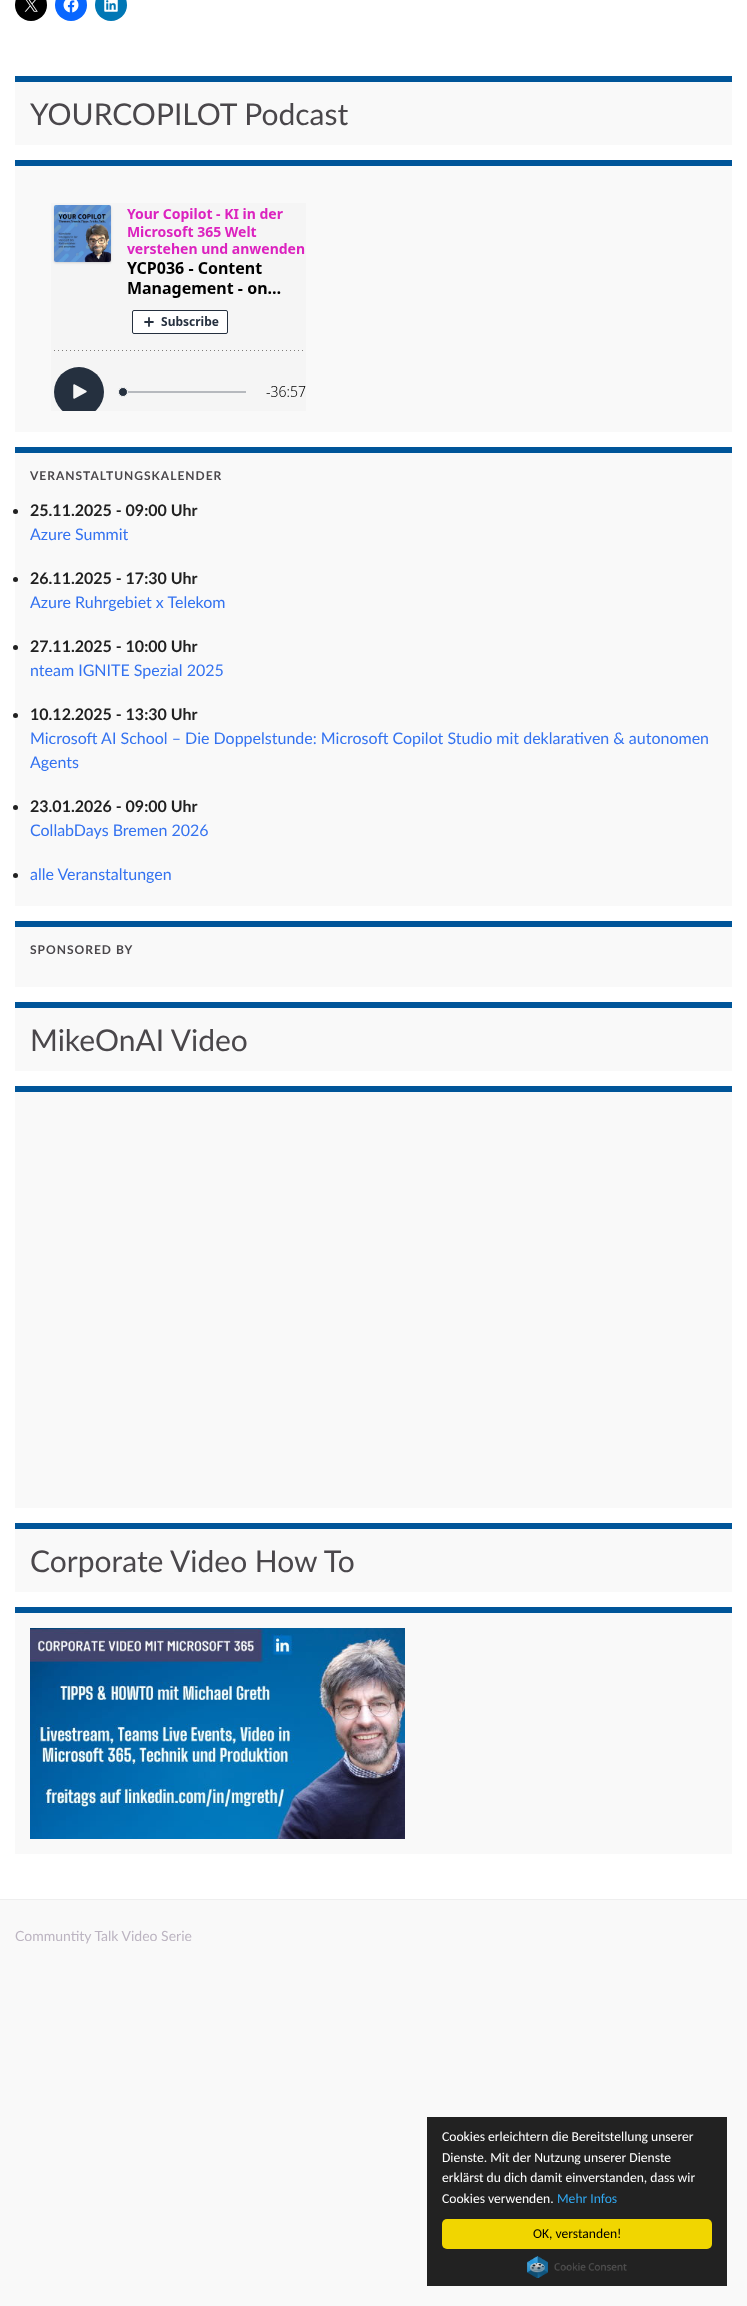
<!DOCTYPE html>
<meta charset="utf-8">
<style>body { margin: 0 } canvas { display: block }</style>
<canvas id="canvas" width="747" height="2306"></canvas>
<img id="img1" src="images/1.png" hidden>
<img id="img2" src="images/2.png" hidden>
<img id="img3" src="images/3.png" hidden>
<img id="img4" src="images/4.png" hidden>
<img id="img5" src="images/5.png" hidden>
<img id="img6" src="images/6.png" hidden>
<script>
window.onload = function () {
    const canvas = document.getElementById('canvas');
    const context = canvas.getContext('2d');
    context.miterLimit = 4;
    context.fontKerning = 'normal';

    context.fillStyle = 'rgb(255, 255, 255)';
    context.fillRect(0, 0, 747, 2306);
    context.fillStyle = 'rgb(0, 0, 0)';
    context.beginPath();
    context.arc(31, 5, 16, 0, 2 * Math.PI);
    context.fill();
    context.drawImage(document.getElementById('img1'), 24, 0, 14, 12);
    context.fillStyle = 'rgb(8, 102, 255)';
    context.beginPath();
    context.arc(71, 5, 16, 0, 2 * Math.PI);
    context.fill();
    context.drawImage(document.getElementById('img2'), 63, 0, 16, 13);
    context.fillStyle = 'rgb(0, 119, 181)';
    context.beginPath();
    context.arc(111, 5, 16, 0, 2 * Math.PI);
    context.fill();
    context.drawImage(document.getElementById('img3'), 104, 0, 14, 12);
    context.fillStyle = 'rgb(249, 249, 249)';
    context.fillRect(15, 82, 717, 63);
    context.fillStyle = 'rgb(0, 85, 153)';
    context.fillRect(15, 76, 717, 6);
    context.fillStyle = 'rgb(249, 249, 249)';
    context.fillRect(15, 166, 717, 266);
    context.fillStyle = 'rgb(0, 85, 153)';
    context.fillRect(15, 160, 717, 6);
    context.drawImage(document.getElementById('img4'), 51, 203, 255, 208);
    context.fillStyle = 'rgb(249, 249, 249)';
    context.fillRect(15, 453, 717, 453);
    context.fillStyle = 'rgb(0, 85, 153)';
    context.fillRect(15, 447, 717, 6);
    context.fillStyle = 'rgb(33, 33, 33)';
    context.beginPath();
    context.arc(15.5, 511.5, 2.5, 0, 2 * Math.PI);
    context.fill();
    context.beginPath();
    context.arc(15.5, 579.5, 2.5, 0, 2 * Math.PI);
    context.fill();
    context.beginPath();
    context.arc(15.5, 647.5, 2.5, 0, 2 * Math.PI);
    context.fill();
    context.beginPath();
    context.arc(15.5, 715.5, 2.5, 0, 2 * Math.PI);
    context.fill();
    context.beginPath();
    context.arc(15.5, 807.5, 2.5, 0, 2 * Math.PI);
    context.fill();
    context.beginPath();
    context.arc(15.5, 875.5, 2.5, 0, 2 * Math.PI);
    context.fill();
    context.fillStyle = 'rgb(249, 249, 249)';
    context.fillRect(15, 927, 717, 60);
    context.fillStyle = 'rgb(0, 85, 153)';
    context.fillRect(15, 921, 717, 6);
    context.fillStyle = 'rgb(249, 249, 249)';
    context.fillRect(15, 1008, 717, 63);
    context.fillStyle = 'rgb(0, 85, 153)';
    context.fillRect(15, 1002, 717, 6);
    context.fillStyle = 'rgb(249, 249, 249)';
    context.fillRect(15, 1092, 717, 416);
    context.fillStyle = 'rgb(0, 85, 153)';
    context.fillRect(15, 1086, 717, 6);
    context.fillStyle = 'rgb(249, 249, 249)';
    context.fillRect(15, 1529, 717, 63);
    context.fillStyle = 'rgb(0, 85, 153)';
    context.fillRect(15, 1523, 717, 6);
    context.fillStyle = 'rgb(249, 249, 249)';
    context.fillRect(15, 1613, 717, 241);
    context.fillStyle = 'rgb(0, 85, 153)';
    context.fillRect(15, 1607, 717, 6);
    context.drawImage(document.getElementById('img5'), 30, 1628, 375, 211);
    context.fillStyle = 'rgb(249, 249, 249)';
    context.fillRect(0, 1900, 747, 406);
    context.fillStyle = 'rgb(238, 238, 238)';
    context.fillRect(0, 1899, 747, 1);
    context.fillStyle = 'rgb(34, 34, 34)';
    context.fillRect(427, 2117, 300, 169);
    context.fillStyle = 'rgb(241, 214, 0)';
    context.beginPath();
    context.roundRect(442, 2219, 270, 30, 5);
    context.fill();
    context.drawImage(document.getElementById('img6'), 527, 2256, 100, 22);
    context.font = '30px Lato';
    context.fillStyle = 'rgb(74, 71, 75)';
    context.fillText('YOURCOPILOT Podcast', 30, 125);
    context.letterSpacing = '1px';
    context.font = 'bold 12px Lato';
    context.fillText('VERANSTALTUNGSKALENDER', 30, 480);
    context.letterSpacing = '0px';
    context.font = 'bold 16px Lato';
    context.fillStyle = 'rgb(33, 33, 33)';
    context.fillText('25.11.2025 - 09:00 Uhr', 30, 516);
    context.font = '16px Lato';
    context.fillStyle = 'rgb(51, 114, 240)';
    context.fillText('Azure Summit', 30, 540);
    context.font = 'bold 16px Lato';
    context.fillStyle = 'rgb(33, 33, 33)';
    context.fillText('26.11.2025 - 17:30 Uhr', 30, 584);
    context.font = '16px Lato';
    context.fillStyle = 'rgb(51, 114, 240)';
    context.fillText('Azure Ruhrgebiet x Telekom', 30, 608);
    context.font = 'bold 16px Lato';
    context.fillStyle = 'rgb(33, 33, 33)';
    context.fillText('27.11.2025 - 10:00 Uhr', 30, 652);
    context.font = '16px Lato';
    context.fillStyle = 'rgb(51, 114, 240)';
    context.fillText('nteam IGNITE Spezial 2025', 30, 676);
    context.font = 'bold 16px Lato';
    context.fillStyle = 'rgb(33, 33, 33)';
    context.fillText('10.12.2025 - 13:30 Uhr', 30, 720);
    context.font = '16px Lato';
    context.fillStyle = 'rgb(51, 114, 240)';
    context.fillText('Microsoft AI School – Die Doppelstunde: Microsoft Copilot Studio mit deklarativen & autonomen', 30, 744);
    context.fillText('Agents', 30, 768);
    context.font = 'bold 16px Lato';
    context.fillStyle = 'rgb(33, 33, 33)';
    context.fillText('23.01.2026 - 09:00 Uhr', 30, 812);
    context.font = '16px Lato';
    context.fillStyle = 'rgb(51, 114, 240)';
    context.fillText('CollabDays Bremen 2026', 30, 836);
    context.fillText('alle Veranstaltungen', 30, 880);
    context.letterSpacing = '1px';
    context.font = 'bold 12px Lato';
    context.fillStyle = 'rgb(74, 71, 75)';
    context.fillText('SPONSORED BY', 30, 954);
    context.letterSpacing = '0px';
    context.font = '30px Lato';
    context.fillText('MikeOnAI Video', 30, 1051);
    context.fillText('Corporate Video How To', 30, 1572);
    context.font = '14px Lato';
    context.fillStyle = 'rgb(188, 180, 193)';
    context.fillText('Communtity Talk Video Serie', 15, 1941);
    context.font = '13.6px Carlito';
    context.fillStyle = 'rgb(255, 255, 255)';
    context.fillText('Cookies erleichtern die Bereitstellung unserer', 442, 2141);
    context.fillText('Dienste. Mit der Nutzung unserer Dienste', 442, 2162);
    context.fillText('erklärst du dich damit einverstanden, dass wir', 442, 2182);
    context.fillText('Cookies verwenden.', 442, 2203);
    context.fillStyle = 'rgb(49, 168, 240)';
    context.fillText('Mehr Infos', 557, 2203);
    context.fillStyle = 'rgb(0, 0, 0)';
    context.fillText('OK, verstanden!', 533, 2238);
};
</script>
